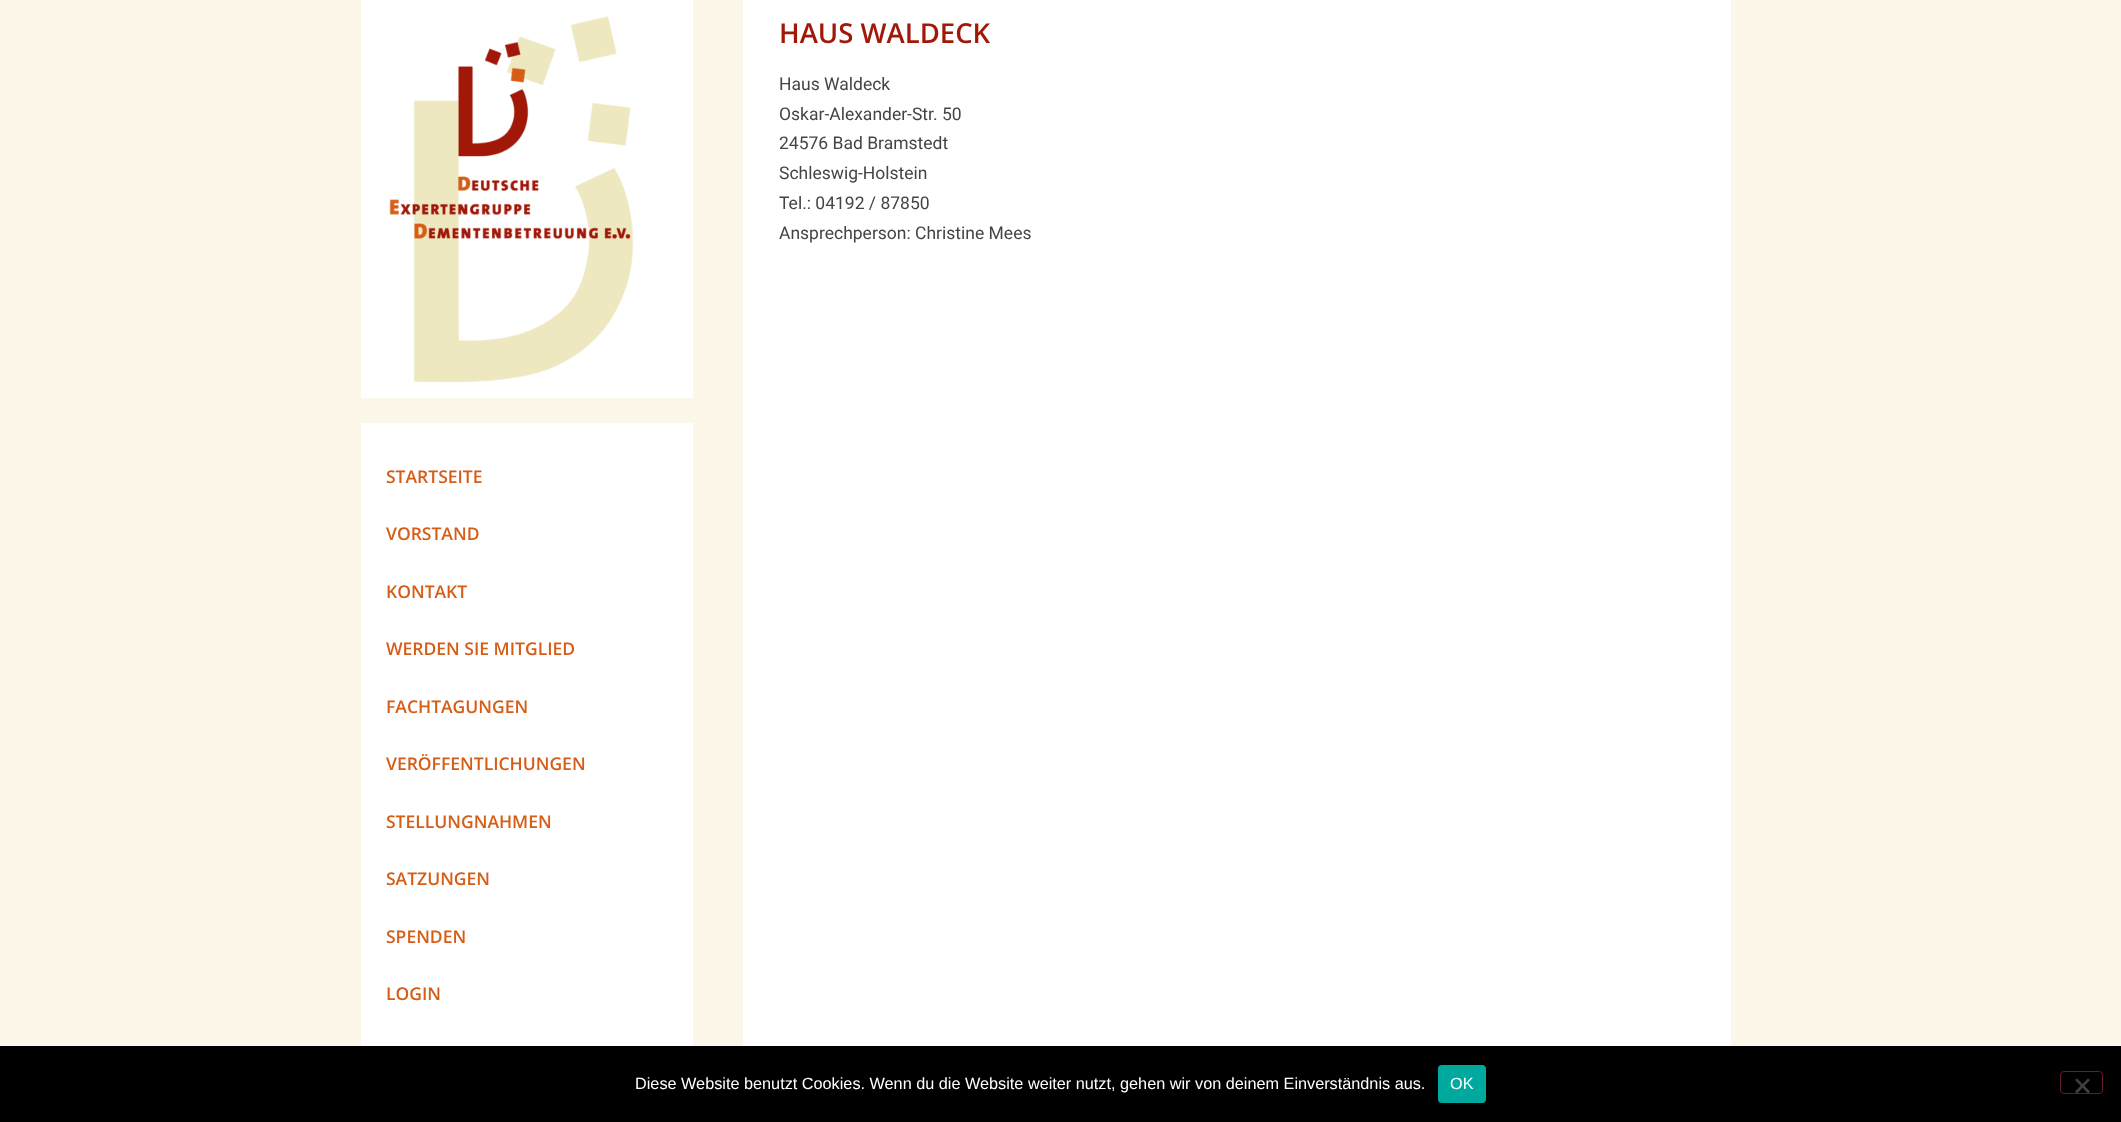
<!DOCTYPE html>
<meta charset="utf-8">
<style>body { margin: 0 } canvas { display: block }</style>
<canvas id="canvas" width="2121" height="1122"></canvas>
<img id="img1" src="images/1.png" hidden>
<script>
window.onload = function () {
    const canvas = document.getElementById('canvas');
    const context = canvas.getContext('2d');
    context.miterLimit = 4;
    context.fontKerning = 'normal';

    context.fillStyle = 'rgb(252, 247, 232)';
    context.fillRect(0, 0, 2121, 1122);
    context.fillStyle = 'rgb(255, 255, 255)';
    context.fillRect(743, 0, 988, 1046);
    context.fillRect(361, 0, 332, 398);
    context.drawImage(document.getElementById('img1'), 389, 16, 245, 367);
    context.fillRect(361, 423, 332, 623);
    context.fillStyle = 'rgb(0, 0, 0)';
    context.fillRect(0, 1046, 2121, 76);
    context.fillStyle = 'rgb(0, 169, 157)';
    context.beginPath();
    context.roundRect(1438, 1065, 48, 38, 4);
    context.fill();
    context.beginPath();
    context.roundRect(2060.5, 1071.5, 42, 22, 3.5);
    context.strokeStyle = 'rgb(102, 26, 51)';
    context.stroke();
    context.fillStyle = 'rgb(64, 64, 64)';
    context.beginPath();
    context.moveTo(2088, 1078.5);
    context.lineTo(2090, 1080);
    context.lineTo(2077, 1093.5);
    context.lineTo(2075, 1091.5);
    context.closePath();
    context.fill();
    context.beginPath();
    context.moveTo(2075, 1080);
    context.lineTo(2077, 1078.5);
    context.lineTo(2090, 1091.5);
    context.lineTo(2088, 1093.5);
    context.closePath();
    context.fill();
    context.font = '600 27.5px Open Sans';
    context.fillStyle = 'rgb(161, 23, 8)';
    context.fillText('HAUS WALDECK', 779, 43);
    context.font = '17.5px Roboto';
    context.fillStyle = 'rgb(68, 68, 68)';
    context.fillText('Haus Waldeck', 779, 90);
    context.fillText('Oskar-Alexander-Str. 50', 779, 120);
    context.fillText('24576 Bad Bramstedt', 779, 149);
    context.fillText('Schleswig-Holstein', 779, 179);
    context.fillText('Tel.: 04192 / 87850', 779, 209);
    context.fillText('Ansprechperson: Christine Mees', 779, 239);
    context.font = '600 17.5px Open Sans';
    context.fillStyle = 'rgb(214, 93, 22)';
    context.fillText('STARTSEITE', 386, 483);
    context.fillText('VORSTAND', 386, 540);
    context.fillText('KONTAKT', 386, 598);
    context.fillText('WERDEN SIE MITGLIED', 386, 655);
    context.fillText('FACHTAGUNGEN', 386, 713);
    context.fillText('VERÖFFENTLICHUNGEN', 386, 770);
    context.fillText('STELLUNGNAHMEN', 386, 828);
    context.fillText('SATZUNGEN', 386, 885);
    context.fillText('SPENDEN', 386, 943);
    context.fillText('LOGIN', 386, 1000);
    context.font = '16.25px Liberation Sans';
    context.fillStyle = 'rgb(255, 255, 255)';
    context.fillText('Diese Website benutzt Cookies. Wenn du die Website weiter nutzt, gehen wir von deinem Einverständnis aus.', 635, 1089);
    context.fillText('OK', 1450, 1089);
};
</script>
